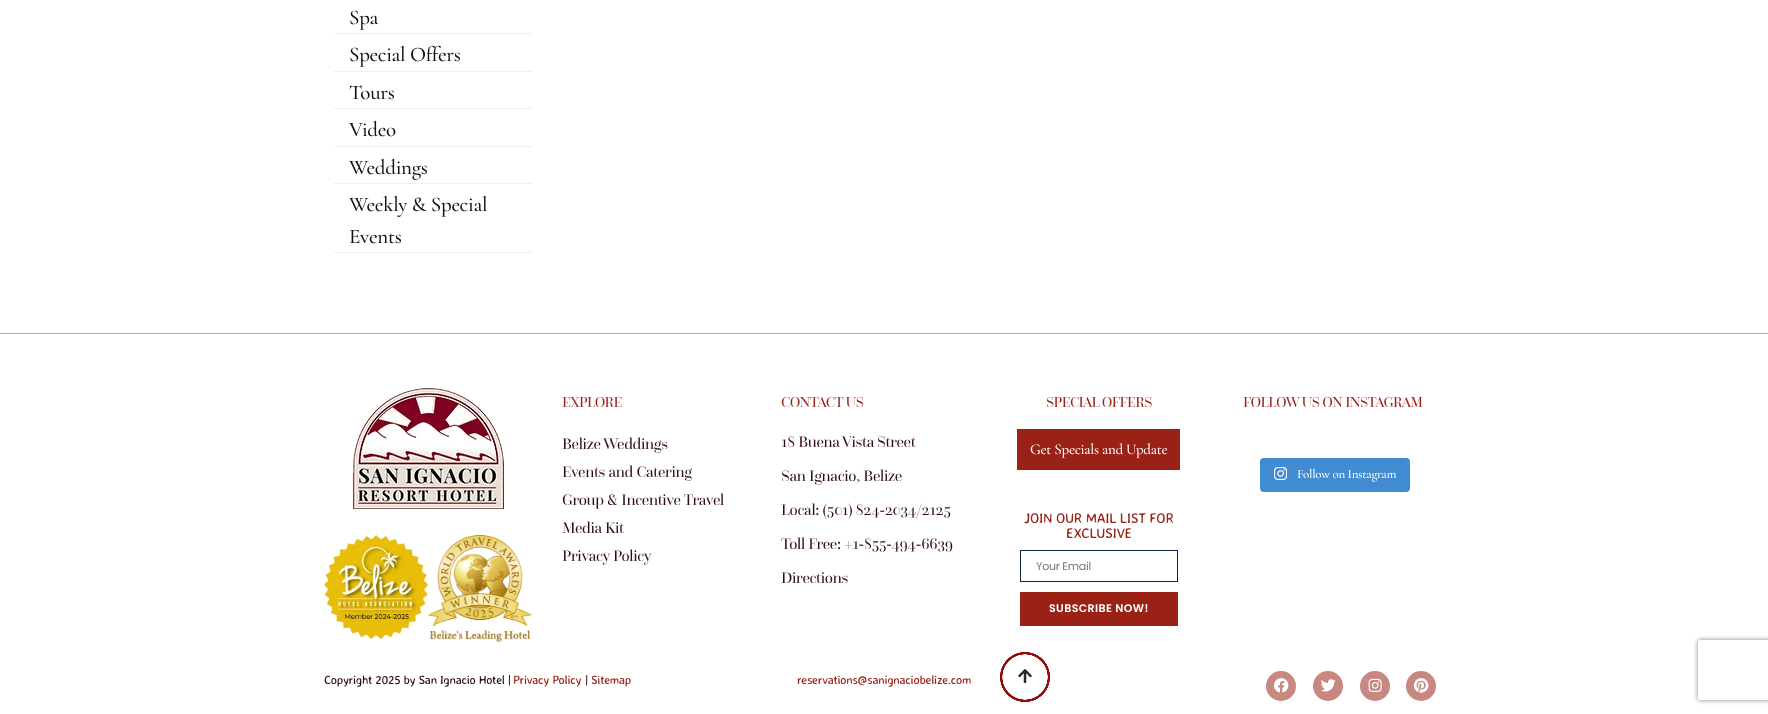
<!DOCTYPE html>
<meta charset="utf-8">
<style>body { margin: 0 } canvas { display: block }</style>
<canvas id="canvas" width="1768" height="714"></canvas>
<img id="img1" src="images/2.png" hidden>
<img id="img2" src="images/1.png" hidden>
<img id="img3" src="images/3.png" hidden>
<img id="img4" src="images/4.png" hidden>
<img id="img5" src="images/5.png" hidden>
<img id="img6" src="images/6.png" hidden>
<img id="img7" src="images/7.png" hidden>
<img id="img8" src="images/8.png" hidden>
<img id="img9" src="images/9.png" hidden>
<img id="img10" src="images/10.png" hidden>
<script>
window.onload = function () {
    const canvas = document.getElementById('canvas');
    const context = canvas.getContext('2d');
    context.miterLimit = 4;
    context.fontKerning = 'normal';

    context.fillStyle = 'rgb(255, 255, 255)';
    context.fillRect(0, 0, 1768, 714);
    context.fillStyle = 'rgb(238, 238, 238)';
    context.fillRect(334, 33, 198, 1);
    context.fillRect(334, 71, 198, 1);
    context.fillRect(334, 108, 198, 1);
    context.fillRect(334, 146, 198, 1);
    context.fillRect(334, 183, 198, 1);
    context.fillRect(334, 252, 198, 1);
    context.drawImage(document.getElementById('img1'), 1018, 669, 14, 14);
    context.drawImage(document.getElementById('img2'), 1000, 652, 50, 50);
    context.fillStyle = 'rgb(177, 177, 177)';
    context.fillRect(0, 333, 1768, 1);
    context.drawImage(document.getElementById('img3'), 353, 388, 151, 121);
    context.drawImage(document.getElementById('img4'), 324, 535, 104, 104);
    context.drawImage(document.getElementById('img5'), 428, 535, 104, 108);
    context.fillStyle = 'rgb(153, 33, 22)';
    context.fillRect(1020, 432, 157, 35);
    context.beginPath();
    context.moveTo(1018.5, 430.5);
    context.lineTo(1178.5, 430.5);
    context.lineTo(1178.5, 468.5);
    context.lineTo(1018.5, 468.5);
    context.closePath();
    context.strokeStyle = 'rgb(153, 33, 22)';
    context.lineWidth = 3;
    context.stroke();
    context.strokeStyle = 'rgb(16, 35, 65)';
    context.lineWidth = 1;
    context.strokeRect(1020.5, 550.5, 157, 31);
    context.fillRect(1020, 592, 158, 34);
    context.fillStyle = 'rgb(64, 139, 209)';
    context.beginPath();
    context.roundRect(1260, 458, 150, 34, 4);
    context.fill();
    context.drawImage(document.getElementById('img6'), 1274, 467, 13, 13);
    context.fillStyle = 'rgb(200, 135, 129)';
    context.beginPath();
    context.arc(1281, 686, 15, 0, 2 * Math.PI);
    context.fill();
    context.drawImage(document.getElementById('img7'), 1273, 678, 16, 15);
    context.beginPath();
    context.arc(1328, 686, 15, 0, 2 * Math.PI);
    context.fill();
    context.drawImage(document.getElementById('img8'), 1321, 679, 15, 13);
    context.beginPath();
    context.arc(1375, 686, 15, 0, 2 * Math.PI);
    context.fill();
    context.drawImage(document.getElementById('img9'), 1368, 678, 14, 14);
    context.beginPath();
    context.arc(1421, 686, 15, 0, 2 * Math.PI);
    context.fill();
    context.drawImage(document.getElementById('img10'), 1413, 678, 16, 15);
    context.save();
    context.beginPath();
    context.moveTo(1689, 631);
    context.lineTo(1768, 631);
    context.lineTo(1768, 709);
    context.lineTo(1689, 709);
    context.closePath();
    context.moveTo(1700, 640);
    context.lineTo(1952, 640);
    context.bezierCurveTo(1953, 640, 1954, 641, 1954, 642);
    context.lineTo(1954, 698);
    context.bezierCurveTo(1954, 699, 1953, 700, 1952, 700);
    context.lineTo(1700, 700);
    context.bezierCurveTo(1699, 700, 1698, 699, 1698, 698);
    context.lineTo(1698, 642);
    context.bezierCurveTo(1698, 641, 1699, 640, 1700, 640);
    context.closePath();
    context.clip('evenodd');
    context.fillStyle = 'rgb(128, 128, 128)';
    context.filter = 'blur(2.5px)';
    context.beginPath();
    context.roundRect(1698, 640, 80, 60, 2);
    context.fill();
    context.filter = 'none';
    context.restore();
    context.letterSpacing = '-0.3px';
    context.font = '500 21px Cormorant Garamond';
    context.fillStyle = 'rgb(17, 17, 17)';
    context.fillText('Spa', 349, 24);
    context.fillText('Special Offers', 349, 61);
    context.fillText('Tours', 349, 99);
    context.fillText('Video', 349, 136);
    context.fillText('Weddings', 349, 174);
    context.fillText('Weekly & Special', 349, 211);
    context.fillText('Events', 349, 243);
    context.letterSpacing = '-0.6px';
    context.font = '15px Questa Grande';
    context.fillStyle = 'rgb(153, 33, 22)';
    context.fillText('EXPLORE', 562, 407);
    context.letterSpacing = '-0.3px';
    context.font = '16px Questa Grande';
    context.fillStyle = 'rgb(47, 13, 14)';
    context.fillText('Belize Weddings', 562, 449);
    context.fillText('Events and Catering', 562, 477);
    context.fillText('Group & Incentive Travel', 562, 505);
    context.fillText('Media Kit', 562, 533);
    context.fillText('Privacy Policy', 562, 561);
    context.letterSpacing = '-0.6px';
    context.font = '15px Questa Grande';
    context.fillStyle = 'rgb(153, 33, 22)';
    context.fillText('CONTACT US', 781, 407);
    context.letterSpacing = '-0.3px';
    context.font = '16px Questa Grande';
    context.fillStyle = 'rgb(47, 13, 14)';
    context.fillText('18 Buena Vista Street', 781, 447);
    context.fillText('San Ignacio, Belize', 781, 481);
    context.fillText('Local: (501) 824-2034/2125', 781, 515);
    context.fillText('Toll Free: +1-855-494-6639', 781, 549);
    context.fillText('Directions', 781, 583);
    context.letterSpacing = '-0.6px';
    context.font = '15px Questa Grande';
    context.fillStyle = 'rgb(153, 33, 22)';
    context.fillText('SPECIAL OFFERS', 1046, 407);
    context.letterSpacing = '-0.3px';
    context.font = '500 15px Cormorant Garamond';
    context.fillStyle = 'rgb(255, 255, 255)';
    context.fillText('Get Specials and Update', 1030, 454);
    context.font = '14px Averia Sans Libre';
    context.fillStyle = 'rgb(153, 33, 22)';
    context.fillText('JOIN OUR MAIL LIST FOR', 1024, 523);
    context.fillText('EXCLUSIVE', 1066, 538);
    context.letterSpacing = '-0.25px';
    context.font = '11px Poppins';
    context.fillStyle = 'rgb(117, 117, 117)';
    context.fillText('Your Email', 1036, 570);
    context.letterSpacing = '0.4px';
    context.font = '600 11px Poppins';
    context.fillStyle = 'rgb(255, 255, 255)';
    context.fillText('SUBSCRIBE NOW!', 1049, 612);
    context.letterSpacing = '-0.6px';
    context.font = '15px Questa Grande';
    context.fillStyle = 'rgb(153, 33, 22)';
    context.fillText('FOLLOW US ON INSTAGRAM', 1243, 407);
    context.letterSpacing = '-0.3px';
    context.font = '500 13px Cormorant Garamond';
    context.fillStyle = 'rgb(255, 255, 255)';
    context.fillText('Follow on Instagram', 1297, 478);
    context.font = '12px Averia Sans Libre';
    context.fillStyle = 'rgb(47, 13, 14)';
    context.fillText('Copyright 2025 by San Ignacio Hotel |', 324, 684);
    context.fillStyle = 'rgb(153, 33, 22)';
    context.fillText('Privacy Policy', 513, 684);
    context.fillStyle = 'rgb(47, 13, 14)';
    context.fillText('|', 585, 684);
    context.fillStyle = 'rgb(153, 33, 22)';
    context.fillText('Sitemap', 591, 684);
    context.fillText('reservations@sanignaciobelize.com', 797, 684);
};
</script>
